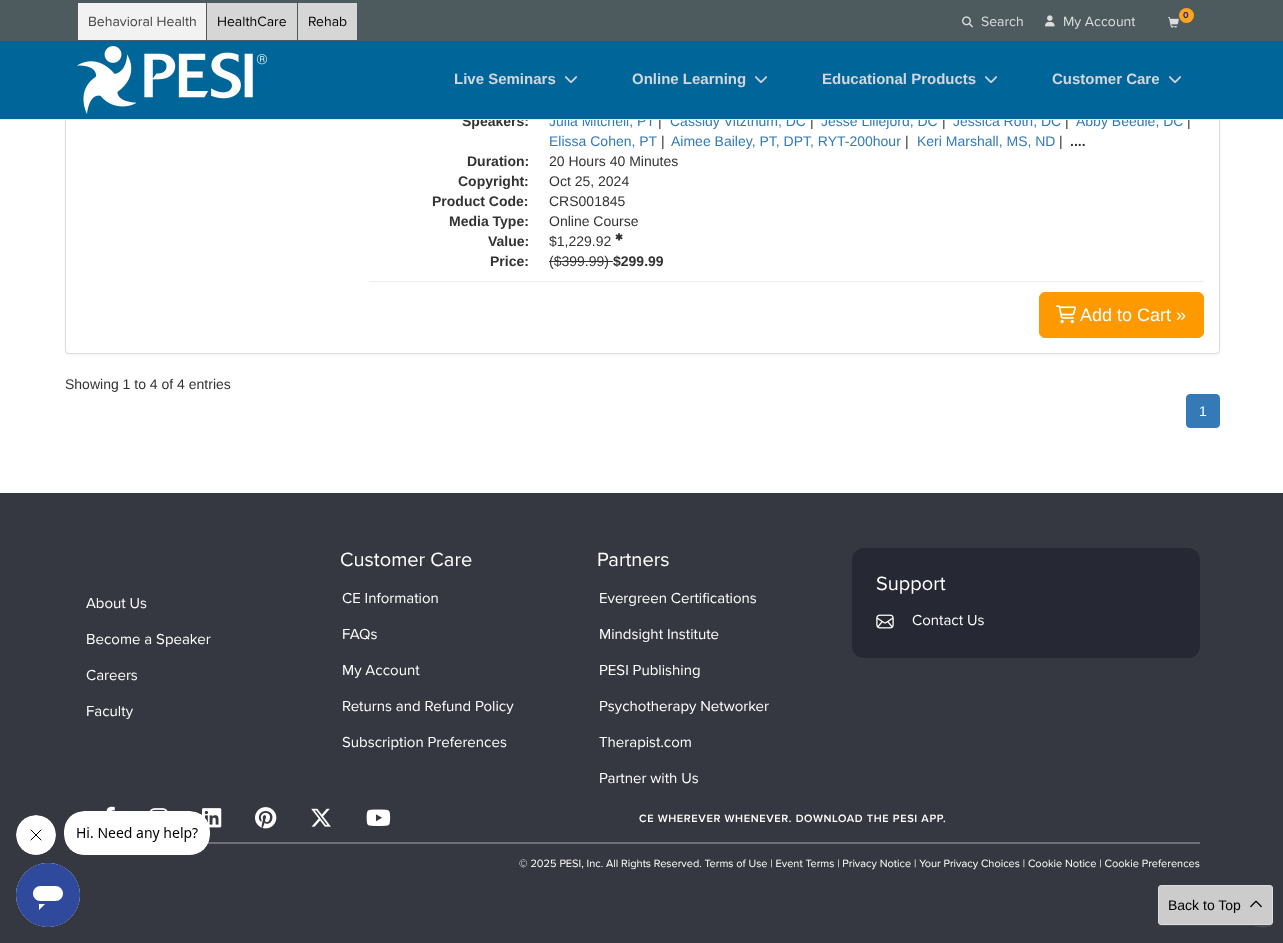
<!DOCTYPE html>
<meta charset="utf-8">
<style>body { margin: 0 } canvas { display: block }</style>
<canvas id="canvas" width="1283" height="943"></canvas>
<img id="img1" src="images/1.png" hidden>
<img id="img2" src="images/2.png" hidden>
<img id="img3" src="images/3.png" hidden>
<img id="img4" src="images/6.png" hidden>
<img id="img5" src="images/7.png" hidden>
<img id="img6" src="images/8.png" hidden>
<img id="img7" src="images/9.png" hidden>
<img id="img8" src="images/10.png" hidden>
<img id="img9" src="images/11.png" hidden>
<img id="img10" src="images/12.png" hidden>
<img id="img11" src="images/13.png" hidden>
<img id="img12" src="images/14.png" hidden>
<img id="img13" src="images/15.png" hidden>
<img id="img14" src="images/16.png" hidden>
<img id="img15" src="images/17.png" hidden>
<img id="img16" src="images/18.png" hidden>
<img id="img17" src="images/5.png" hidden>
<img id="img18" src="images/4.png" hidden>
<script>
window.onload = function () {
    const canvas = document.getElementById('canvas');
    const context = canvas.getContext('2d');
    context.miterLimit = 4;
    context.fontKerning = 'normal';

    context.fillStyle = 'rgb(255, 255, 255)';
    context.fillRect(0, 0, 1283, 943);
    context.fillStyle = 'rgba(0, 0, 0, 0.05)';
    context.filter = 'blur(1px)';
    context.beginPath();
    context.roundRect(65, 15, 1155, 340, 4);
    context.fill();
    context.filter = 'none';
    context.fillStyle = 'rgb(255, 255, 255)';
    context.beginPath();
    context.roundRect(65.5, 14.5, 1154, 339, 3.5);
    context.fill();
    context.strokeStyle = 'rgb(221, 221, 221)';
    context.stroke();
    context.fillStyle = 'rgb(78, 91, 94)';
    context.fillRect(0, 0, 1283, 41);
    context.fillStyle = 'rgb(242, 242, 242)';
    context.fillRect(78, 3, 128, 37);
    context.fillStyle = 'rgb(215, 214, 214)';
    context.fillRect(207, 3, 90, 37);
    context.fillRect(298, 3, 59, 37);
    context.fillStyle = 'rgb(255, 164, 28)';
    context.beginPath();
    context.arc(1186.5, 15.5, 7.5, 0, 2 * Math.PI);
    context.fill();
    context.drawImage(document.getElementById('img1'), 1168, 17, 11, 11);
    context.drawImage(document.getElementById('img2'), 962, 16, 11, 12);
    context.drawImage(document.getElementById('img3'), 1045, 15, 10, 12);
    context.drawImage(document.getElementById('img4'), 615, 233, 8, 8);
    context.fillStyle = 'rgb(51, 51, 51)';
    context.fillRect(549, 261, 64, 1);
    context.fillStyle = 'rgb(238, 238, 238)';
    context.fillRect(369, 281, 835, 1);
    context.fillStyle = 'rgb(255, 153, 0)';
    context.beginPath();
    context.roundRect(1039.5, 292.5, 164, 45, 5.5);
    context.fill();
    context.strokeStyle = 'rgb(255, 153, 0)';
    context.stroke();
    context.drawImage(document.getElementById('img5'), 1056, 305, 21, 19);
    context.fillStyle = 'rgb(51, 122, 183)';
    context.beginPath();
    context.roundRect(1186.5, 394.5, 33, 33, 3.5);
    context.fill();
    context.strokeStyle = 'rgb(51, 122, 183)';
    context.stroke();
    context.fillStyle = 'rgb(54, 56, 65)';
    context.fillRect(0, 493, 1283, 450);
    context.fillStyle = 'rgb(74, 76, 84)';
    context.beginPath();
    context.moveTo(1158, 922);
    context.bezierCurveTo(1158, 924, 1159, 926, 1161, 926);
    context.lineTo(1252, 926);
    context.bezierCurveTo(1253, 926, 1273, 931, 1273, 922);
    context.lineTo(1272, 924);
    context.lineTo(1270, 925);
    context.lineTo(1161, 925);
    context.bezierCurveTo(1159, 925, 1158, 924, 1158, 922);
    context.closePath();
    context.fill();
    context.fillStyle = 'rgb(204, 204, 204)';
    context.beginPath();
    context.roundRect(1158.5, 885.5, 114, 39, 2.5);
    context.fill();
    context.strokeStyle = 'rgb(220, 220, 220)';
    context.stroke();
    context.drawImage(document.getElementById('img6'), 1250, 900, 12, 8);
    context.fillStyle = 'rgb(38, 40, 51)';
    context.beginPath();
    context.roundRect(852, 548, 348, 110, 12);
    context.fill();
    context.drawImage(document.getElementById('img7'), 876, 614, 18, 15);
    context.drawImage(document.getElementById('img8'), 106, 806, 9, 5);
    context.drawImage(document.getElementById('img9'), 149, 808, 19, 3);
    context.drawImage(document.getElementById('img10'), 202, 808, 20, 20);
    context.drawImage(document.getElementById('img11'), 255, 807, 22, 22);
    context.drawImage(document.getElementById('img12'), 311, 808, 20, 19);
    context.drawImage(document.getElementById('img13'), 366, 809, 25, 17);
    context.fillStyle = 'rgb(107, 112, 123)';
    context.fillRect(207, 842, 993, 2);
    context.drawImage(document.getElementById('img14'), 16, 815, 40, 40);
    context.drawImage(document.getElementById('img15'), 64, 811, 146, 44);
    context.drawImage(document.getElementById('img16'), 16, 863, 64, 64);
    context.font = '14px Proxima Nova';
    context.fillStyle = 'rgb(68, 68, 68)';
    context.fillText('Behavioral Health', 88, 26);
    context.fillStyle = 'rgb(0, 0, 0)';
    context.fillText('HealthCare', 217, 26);
    context.fillText('Rehab', 308, 26);
    context.font = 'bold 9px Proxima Nova';
    context.fillStyle = 'rgb(27, 50, 112)';
    context.fillText('0', 1183, 18);
    context.font = '14px Proxima Nova';
    context.fillStyle = 'rgb(221, 221, 221)';
    context.fillText('Search', 981, 26);
    context.fillText('My Account', 1063, 26);
    context.font = 'bold 14px Liberation Sans';
    context.fillStyle = 'rgb(51, 51, 51)';
    context.fillText('Speakers:', 462, 126);
    context.font = '14px Liberation Sans';
    context.fillStyle = 'rgb(51, 122, 183)';
    context.fillText('Julia Mitchell, PT', 549, 126);
    context.fillStyle = 'rgb(51, 51, 51)';
    context.fillText('|', 658, 126);
    context.fillStyle = 'rgb(51, 122, 183)';
    context.fillText('Cassidy Vitzthum, DC', 670, 126);
    context.fillStyle = 'rgb(51, 51, 51)';
    context.fillText('|', 810, 126);
    context.fillStyle = 'rgb(51, 122, 183)';
    context.fillText('Jesse Lillejord, DC', 821, 126);
    context.fillStyle = 'rgb(51, 51, 51)';
    context.fillText('|', 942, 126);
    context.fillStyle = 'rgb(51, 122, 183)';
    context.fillText('Jessica Roth, DC', 953, 126);
    context.fillStyle = 'rgb(51, 51, 51)';
    context.fillText('|', 1065, 126);
    context.fillStyle = 'rgb(51, 122, 183)';
    context.fillText('Abby Beedle, DC', 1076, 126);
    context.fillStyle = 'rgb(51, 51, 51)';
    context.fillText('|', 1187, 126);
    context.fillStyle = 'rgb(231, 231, 231)';
    context.fillRect(0, 119, 1283, 1);
    context.fillStyle = 'rgb(0, 102, 153)';
    context.fillRect(0, 41, 1283, 78);
    context.drawImage(document.getElementById('img17'), 1169, 76, 12, 7);
    context.font = 'bold 15px Liberation Sans';
    context.fillStyle = 'rgb(211, 214, 218)';
    context.fillText('Customer Care', 1052, 84);
    context.drawImage(document.getElementById('img17'), 985, 76, 12, 7);
    context.fillText('Educational Products', 822, 84);
    context.drawImage(document.getElementById('img17'), 755, 76, 12, 7);
    context.fillText('Online Learning', 632, 84);
    context.drawImage(document.getElementById('img17'), 565, 76, 12, 7);
    context.fillText('Live Seminars', 454, 84);
    context.drawImage(document.getElementById('img18'), 77, 46, 190, 68);
    context.font = '14px Liberation Sans';
    context.fillStyle = 'rgb(51, 122, 183)';
    context.fillText('Elissa Cohen, PT', 549, 146);
    context.fillStyle = 'rgb(51, 51, 51)';
    context.fillText('|', 661, 146);
    context.fillStyle = 'rgb(51, 122, 183)';
    context.fillText('Aimee Bailey, PT, DPT, RYT-200hour', 671, 146);
    context.fillStyle = 'rgb(51, 51, 51)';
    context.fillText('|', 905, 146);
    context.fillStyle = 'rgb(51, 122, 183)';
    context.fillText('Keri Marshall, MS, ND', 917, 146);
    context.fillStyle = 'rgb(51, 51, 51)';
    context.fillText('|', 1059, 146);
    context.font = 'bold 14px Liberation Sans';
    context.fillText('....', 1070, 146);
    context.fillText('Duration:', 467, 166);
    context.font = '14px Liberation Sans';
    context.fillText('20 Hours 40 Minutes', 549, 166);
    context.font = 'bold 14px Liberation Sans';
    context.fillText('Copyright:', 458, 186);
    context.font = '14px Liberation Sans';
    context.fillText('Oct 25, 2024', 549, 186);
    context.font = 'bold 14px Liberation Sans';
    context.fillText('Product Code:', 432, 206);
    context.font = '14px Liberation Sans';
    context.fillText('CRS001845', 549, 206);
    context.font = 'bold 14px Liberation Sans';
    context.fillText('Media Type:', 449, 226);
    context.font = '14px Liberation Sans';
    context.fillText('Online Course', 549, 226);
    context.font = 'bold 14px Liberation Sans';
    context.fillText('Value:', 488, 246);
    context.font = '14px Liberation Sans';
    context.fillText('$1,229.92', 549, 246);
    context.font = 'bold 14px Liberation Sans';
    context.fillText('Price:', 490, 266);
    context.font = '14px Liberation Sans';
    context.fillText('($399.99)', 549, 266);
    context.font = 'bold 14px Liberation Sans';
    context.fillText('$299.99', 613, 266);
    context.font = '18px Liberation Sans';
    context.fillStyle = 'rgb(255, 255, 255)';
    context.fillText('Add to Cart »', 1080, 321);
    context.font = '14px Liberation Sans';
    context.fillStyle = 'rgb(51, 51, 51)';
    context.fillText('Showing 1 to 4 of 4 entries', 65, 389);
    context.fillStyle = 'rgb(255, 255, 255)';
    context.fillText('1', 1199, 416);
    context.fillStyle = 'rgb(0, 0, 0)';
    context.fillText('Back to Top', 1168, 910);
    context.font = '15px Proxima Nova';
    context.fillStyle = 'rgb(255, 255, 255)';
    context.fillText('About Us', 86, 608);
    context.fillText('Become a Speaker', 86, 644);
    context.fillText('Careers', 86, 680);
    context.fillText('Faculty', 86, 716);
    context.font = '20px Proxima Nova';
    context.fillText('Customer Care', 340, 566);
    context.font = '15px Proxima Nova';
    context.fillText('CE Information', 342, 603);
    context.fillText('FAQs', 342, 639);
    context.fillText('My Account', 342, 675);
    context.fillText('Returns and Refund Policy', 342, 711);
    context.fillText('Subscription Preferences', 342, 747);
    context.font = '20px Proxima Nova';
    context.fillText('Partners', 597, 566);
    context.font = '15px Proxima Nova';
    context.fillText('Evergreen Certifications', 599, 603);
    context.fillText('Mindsight Institute', 599, 639);
    context.fillText('PESI Publishing', 599, 675);
    context.fillText('Psychotherapy Networker', 599, 711);
    context.fillText('Therapist.com', 599, 747);
    context.fillText('Partner with Us', 599, 783);
    context.font = '20px Proxima Nova';
    context.fillText('Support', 876, 590);
    context.font = '15px Proxima Nova';
    context.fillText('Contact Us', 912, 625);
    context.letterSpacing = '0.65px';
    context.font = '600 11px Proxima Nova';
    context.fillText('CE WHEREVER WHENEVER. DOWNLOAD THE PESI APP.', 639, 822);
    context.letterSpacing = '0px';
    context.font = '11px Proxima Nova';
    context.fillText('© 2025 PESI, Inc. All Rights Reserved. Terms of Use | Event Terms | Privacy Notice | Your Privacy Choices | Cookie Notice | Cookie Preferences', 519, 867);
};
</script>
